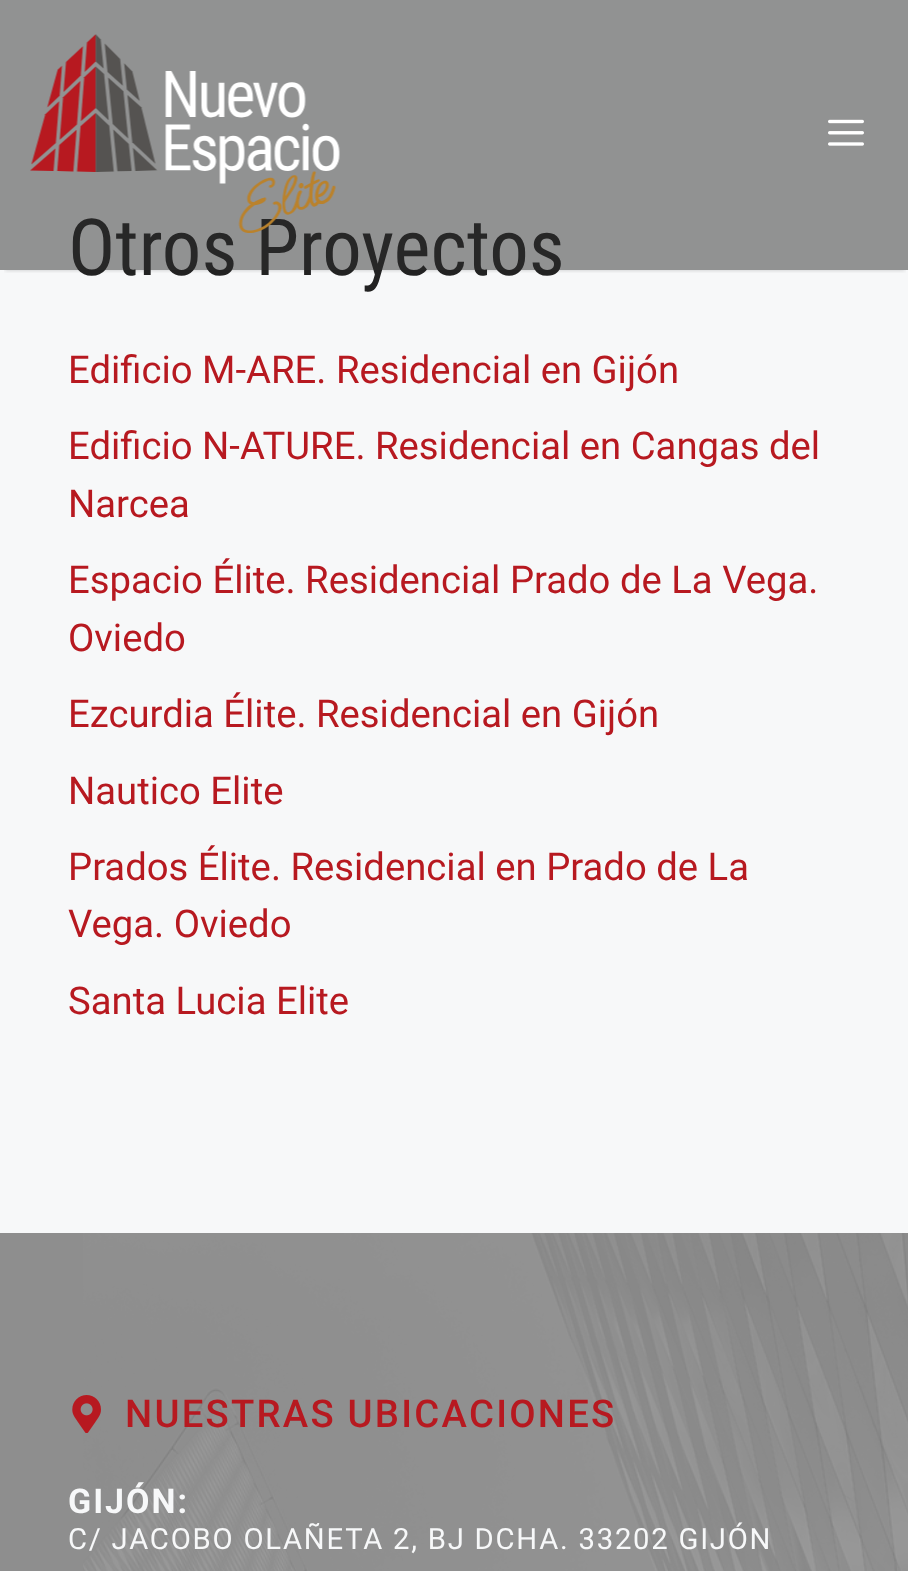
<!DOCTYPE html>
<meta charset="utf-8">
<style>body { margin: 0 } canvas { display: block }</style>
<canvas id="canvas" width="908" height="1571"></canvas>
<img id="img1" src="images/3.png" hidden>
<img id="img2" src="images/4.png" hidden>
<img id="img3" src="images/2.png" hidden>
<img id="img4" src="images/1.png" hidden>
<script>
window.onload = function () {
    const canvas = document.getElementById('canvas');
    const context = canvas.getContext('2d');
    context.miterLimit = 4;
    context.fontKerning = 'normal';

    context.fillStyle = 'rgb(247, 248, 249)';
    context.fillRect(0, 0, 908, 1571);
    context.save();
    context.beginPath();
    context.rect(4, 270, 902, 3);
    context.clip();
    context.fillStyle = 'rgba(0, 0, 0, 0.2)';
    context.filter = 'blur(2px)';
    context.beginPath();
    context.rect(5, 9, 900, 261);
    context.fill();
    context.filter = 'none';
    context.restore();
    context.fillStyle = 'rgb(142, 142, 142)';
    context.fillRect(0, 1233, 908, 338);
    context.drawImage(document.getElementById('img1'), 83, 1233, 825, 338);
    context.drawImage(document.getElementById('img2'), 72, 1395, 29, 38);
    context.font = '78.75px Roboto Condensed';
    context.fillStyle = 'rgb(34, 34, 34)';
    context.fillText('Otros Proyectos', 68, 275);
    context.fillStyle = 'rgba(43, 43, 43, 0.5)';
    context.fillRect(0, 0, 908, 270);
    context.drawImage(document.getElementById('img3'), 828, 119, 36, 27);
    context.drawImage(document.getElementById('img4'), 30, 34, 310, 199);
    context.font = '38.25px Roboto';
    context.fillStyle = 'rgb(183, 25, 32)';
    context.fillText('Edificio M-ARE. Residencial en Gijón', 68, 383);
    context.fillText('Edificio N-ATURE. Residencial en Cangas del', 68, 459);
    context.fillText('Narcea', 68, 517);
    context.fillText('Espacio Élite. Residencial Prado de La Vega.', 68, 593);
    context.fillText('Oviedo', 68, 651);
    context.fillText('Ezcurdia Élite. Residencial en Gijón', 68, 727);
    context.fillText('Nautico Elite', 68, 804);
    context.fillText('Prados Élite. Residencial en Prado de La', 68, 880);
    context.fillText('Vega. Oviedo', 68, 937);
    context.fillText('Santa Lucia Elite', 68, 1014);
    context.letterSpacing = '2.25px';
    context.font = '500 38.25px Roboto';
    context.fillText('NUESTRAS UBICACIONES', 125, 1427);
    context.letterSpacing = '2px';
    context.font = 'bold 34px Roboto';
    context.fillStyle = 'rgb(247, 248, 249)';
    context.fillText('GIJÓN:', 68, 1513);
    context.letterSpacing = '1.75px';
    context.font = '29.25px Roboto';
    context.fillText('C/ JACOBO OLAÑETA 2, BJ DCHA. 33202 GIJÓN', 68, 1549);
};
</script>
